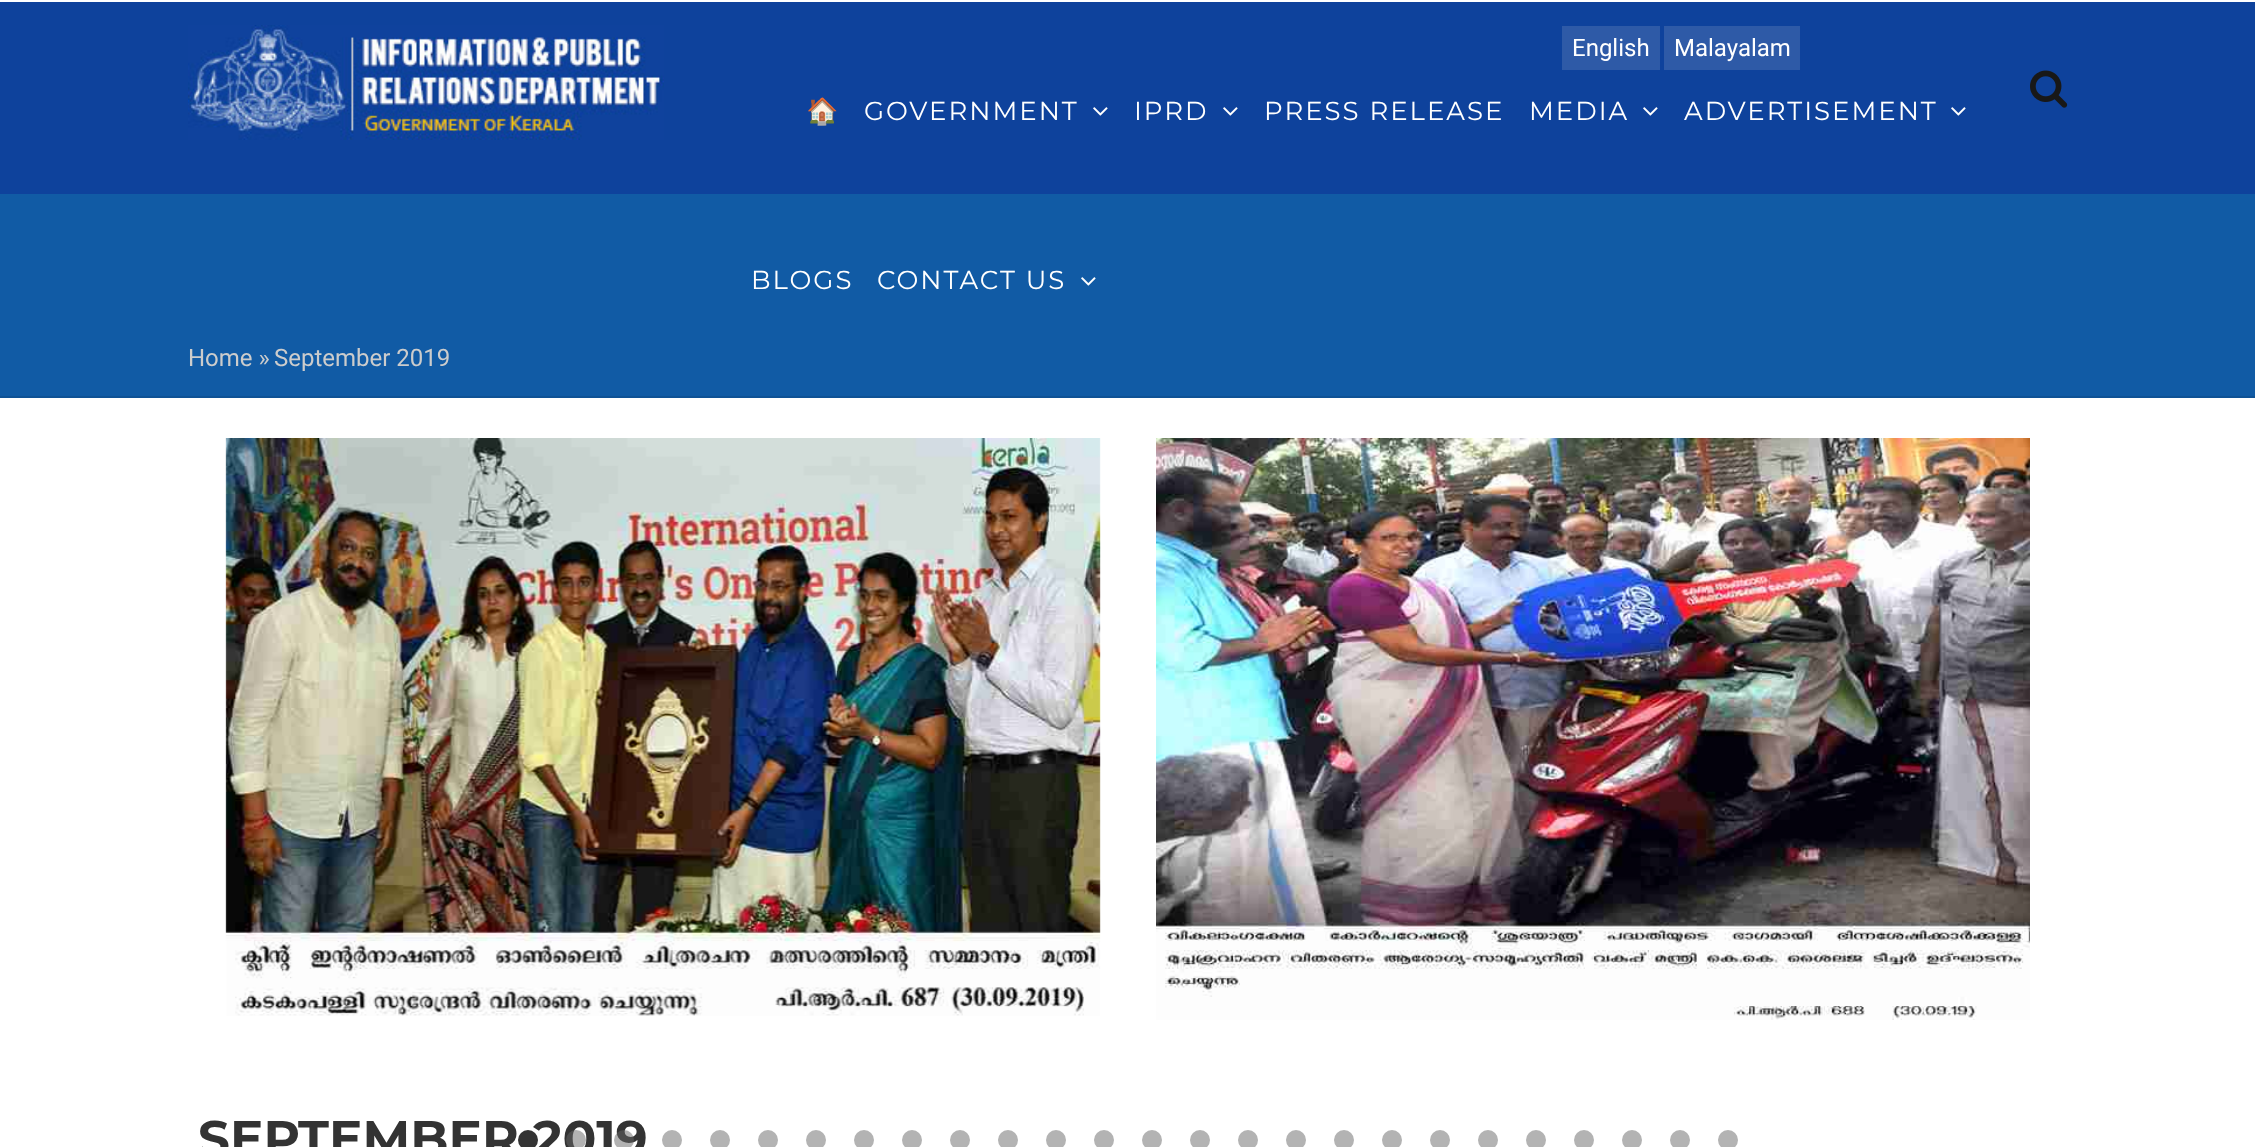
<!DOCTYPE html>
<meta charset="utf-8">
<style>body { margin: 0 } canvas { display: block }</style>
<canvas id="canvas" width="2255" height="1147"></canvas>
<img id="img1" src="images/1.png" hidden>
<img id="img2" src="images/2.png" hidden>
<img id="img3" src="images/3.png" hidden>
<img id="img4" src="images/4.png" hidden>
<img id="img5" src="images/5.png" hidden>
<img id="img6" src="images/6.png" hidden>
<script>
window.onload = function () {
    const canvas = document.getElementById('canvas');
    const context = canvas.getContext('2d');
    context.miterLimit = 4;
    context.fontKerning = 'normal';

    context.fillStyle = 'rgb(255, 255, 255)';
    context.fillRect(0, 0, 2255, 1147);
    context.fillStyle = 'rgb(14, 66, 156)';
    context.fillRect(0, 2, 2255, 192);
    context.fillStyle = 'rgb(46, 90, 167)';
    context.fillRect(1562, 26, 98, 44);
    context.fillRect(1664, 26, 136, 44);
    context.drawImage(document.getElementById('img1'), 188, 25, 476, 115);
    context.drawImage(document.getElementById('img2'), 2030, 70, 38, 38);
    context.drawImage(document.getElementById('img3'), 1093, 107, 15, 9);
    context.drawImage(document.getElementById('img3'), 1223, 107, 15, 9);
    context.drawImage(document.getElementById('img3'), 1643, 107, 15, 9);
    context.drawImage(document.getElementById('img3'), 1951, 107, 15, 9);
    context.fillStyle = 'rgb(17, 91, 165)';
    context.fillRect(0, 194, 2255, 202);
    context.drawImage(document.getElementById('img4'), 1081, 277, 15, 9);
    context.fillStyle = 'rgb(15, 82, 149)';
    context.fillRect(0, 396, 2255, 2);
    context.drawImage(document.getElementById('img5'), 225, 438, 876, 578);
    context.drawImage(document.getElementById('img6'), 1156, 438, 874, 582);
    context.fillStyle = 'rgb(51, 51, 51)';
    context.beginPath();
    context.arc(528, 1140, 10, 0, 2 * Math.PI);
    context.fill();
    context.fillStyle = 'rgb(179, 179, 179)';
    context.beginPath();
    context.arc(672, 1140, 10, 0, 2 * Math.PI);
    context.fill();
    context.beginPath();
    context.arc(720, 1140, 10, 0, 2 * Math.PI);
    context.fill();
    context.beginPath();
    context.arc(768, 1140, 10, 0, 2 * Math.PI);
    context.fill();
    context.beginPath();
    context.arc(816, 1140, 10, 0, 2 * Math.PI);
    context.fill();
    context.beginPath();
    context.arc(864, 1140, 10, 0, 2 * Math.PI);
    context.fill();
    context.beginPath();
    context.arc(912, 1140, 10, 0, 2 * Math.PI);
    context.fill();
    context.beginPath();
    context.arc(960, 1140, 10, 0, 2 * Math.PI);
    context.fill();
    context.beginPath();
    context.arc(1008, 1140, 10, 0, 2 * Math.PI);
    context.fill();
    context.beginPath();
    context.arc(1056, 1140, 10, 0, 2 * Math.PI);
    context.fill();
    context.beginPath();
    context.arc(1104, 1140, 10, 0, 2 * Math.PI);
    context.fill();
    context.beginPath();
    context.arc(1152, 1140, 10, 0, 2 * Math.PI);
    context.fill();
    context.beginPath();
    context.arc(1200, 1140, 10, 0, 2 * Math.PI);
    context.fill();
    context.beginPath();
    context.arc(1248, 1140, 10, 0, 2 * Math.PI);
    context.fill();
    context.beginPath();
    context.arc(1296, 1140, 10, 0, 2 * Math.PI);
    context.fill();
    context.beginPath();
    context.arc(1344, 1140, 10, 0, 2 * Math.PI);
    context.fill();
    context.beginPath();
    context.arc(1392, 1140, 10, 0, 2 * Math.PI);
    context.fill();
    context.beginPath();
    context.arc(1440, 1140, 10, 0, 2 * Math.PI);
    context.fill();
    context.beginPath();
    context.arc(1488, 1140, 10, 0, 2 * Math.PI);
    context.fill();
    context.beginPath();
    context.arc(1536, 1140, 10, 0, 2 * Math.PI);
    context.fill();
    context.beginPath();
    context.arc(1584, 1140, 10, 0, 2 * Math.PI);
    context.fill();
    context.beginPath();
    context.arc(1632, 1140, 10, 0, 2 * Math.PI);
    context.fill();
    context.beginPath();
    context.arc(1680, 1140, 10, 0, 2 * Math.PI);
    context.fill();
    context.beginPath();
    context.arc(1728, 1140, 10, 0, 2 * Math.PI);
    context.fill();
    context.font = '24px Roboto';
    context.fillStyle = 'rgb(255, 255, 255)';
    context.fillText('English', 1572, 56);
    context.fillText('Malayalam', 1674, 56);
    context.letterSpacing = '2px';
    context.font = '26px Noto Color Emoji';
    context.fillText('🏠', 806, 120);
    context.font = '26px Montserrat';
    context.fillText('GOVERNMENT', 864, 120);
    context.fillText('IPRD', 1134, 120);
    context.fillText('PRESS RELEASE', 1264, 120);
    context.fillText('MEDIA', 1529, 120);
    context.fillText('ADVERTISEMENT', 1684, 120);
    context.fillText('BLOGS', 751, 289);
    context.fillText('CONTACT US', 877, 289);
    context.letterSpacing = '0px';
    context.font = '24px Roboto';
    context.fillStyle = 'rgb(204, 204, 204)';
    context.fillText('Home »', 188, 366);
    context.fillText('September 2019', 274, 366);
    context.font = 'bold 50px Montserrat';
    context.fillStyle = 'rgb(51, 51, 51)';
    context.fillText('SEPTEMBER 2019', 198, 1156);
    context.fillStyle = 'rgba(102, 102, 102, 0.5)';
    context.beginPath();
    context.arc(624, 1140, 10, 0, 2 * Math.PI);
    context.fill();
    context.beginPath();
    context.arc(576, 1140, 10, 0, 2 * Math.PI);
    context.fill();
};
</script>
